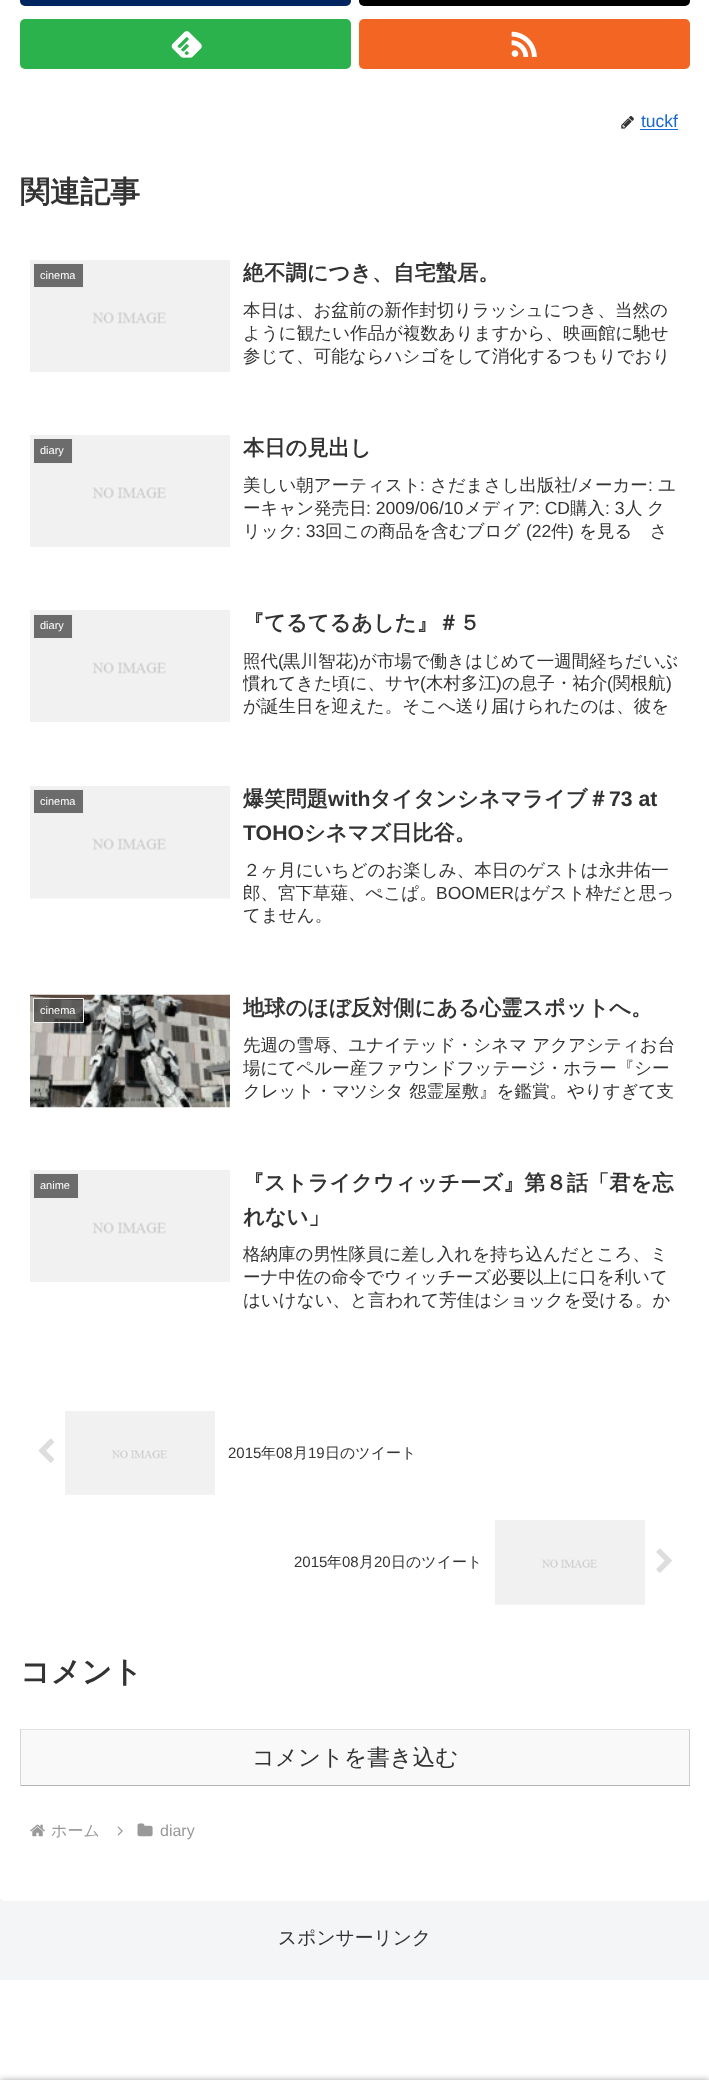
<!DOCTYPE html>
<meta charset="utf-8">
<style>body { margin: 0 } canvas { display: block }</style>
<canvas id="canvas" width="709" height="2080"></canvas>
<img id="img1" src="images/1.png" hidden>
<img id="img2" src="images/2.png" hidden>
<img id="img3" src="images/3.png" hidden>
<img id="img4" src="images/4.png" hidden>
<img id="img5" src="images/5.png" hidden>
<img id="img6" src="images/6.png" hidden>
<img id="img7" src="images/7.png" hidden>
<img id="img8" src="images/8.png" hidden>
<img id="img9" src="images/9.png" hidden>
<img id="img10" src="images/10.png" hidden>
<img id="img11" src="images/11.png" hidden>
<img id="img12" src="images/12.png" hidden>
<img id="img13" src="images/13.png" hidden>
<script>
window.onload = function () {
    const canvas = document.getElementById('canvas');
    const context = canvas.getContext('2d');
    context.miterLimit = 4;
    context.fontKerning = 'normal';

    context.fillStyle = 'rgb(244, 245, 247)';
    context.fillRect(0, 0, 709, 2080);
    context.fillStyle = 'rgb(255, 255, 255)';
    context.beginPath();
    context.roundRect(0, -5, 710, 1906, 5);
    context.fill();
    context.fillStyle = 'rgb(0, 37, 97)';
    context.beginPath();
    context.roundRect(20, -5, 331, 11, 5);
    context.fill();
    context.fillStyle = 'rgb(0, 0, 0)';
    context.beginPath();
    context.roundRect(359, -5, 331, 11, 5);
    context.fill();
    context.fillStyle = 'rgb(43, 178, 76)';
    context.beginPath();
    context.roundRect(20, 19, 331, 50, 5);
    context.fill();
    context.drawImage(document.getElementById('img1'), 171, 31, 31, 27);
    context.fillStyle = 'rgb(242, 101, 34)';
    context.beginPath();
    context.roundRect(359, 19, 331, 50, 5);
    context.fill();
    context.drawImage(document.getElementById('img2'), 511, 31, 26, 26);
    context.drawImage(document.getElementById('img3'), 621, 115, 13, 14);
    context.fillStyle = 'rgb(25, 103, 210)';
    context.fillRect(640, 129, 38, 1);
    context.drawImage(document.getElementById('img4'), 30, 260, 200, 112);
    context.fillStyle = 'rgb(108, 108, 108)';
    context.beginPath();
    context.rect(33.5, 263.5, 50, 24);
    context.fill();
    context.strokeStyle = 'rgb(238, 238, 238)';
    context.stroke();
    context.drawImage(document.getElementById('img4'), 30, 435, 200, 112);
    context.beginPath();
    context.rect(33.5, 438.5, 39, 25);
    context.fill();
    context.stroke();
    context.drawImage(document.getElementById('img4'), 30, 610, 200, 112);
    context.beginPath();
    context.rect(33.5, 614.5, 39, 24);
    context.fill();
    context.stroke();
    context.drawImage(document.getElementById('img5'), 30, 786, 200, 113);
    context.beginPath();
    context.rect(33.5, 789.5, 50, 24);
    context.fill();
    context.stroke();
    context.drawImage(document.getElementById('img6'), 30, 994, 200, 114);
    context.fillStyle = 'rgba(51, 51, 51, 0.7)';
    context.beginPath();
    context.rect(33.5, 998.5, 50, 24);
    context.fill();
    context.stroke();
    context.drawImage(document.getElementById('img4'), 30, 1170, 200, 112);
    context.fillStyle = 'rgb(108, 108, 108)';
    context.beginPath();
    context.rect(33.5, 1173.5, 45, 25);
    context.fill();
    context.stroke();
    context.drawImage(document.getElementById('img7'), 38, 1438, 16, 25);
    context.drawImage(document.getElementById('img8'), 65, 1411, 150, 84);
    context.drawImage(document.getElementById('img9'), 495, 1520, 150, 85);
    context.drawImage(document.getElementById('img10'), 656, 1548, 16, 25);
    context.fillStyle = 'rgb(249, 249, 249)';
    context.fillRect(21, 1730, 668, 55);
    context.fillStyle = 'rgb(227, 227, 227)';
    context.fillRect(20, 1729, 670, 1);
    context.fillStyle = 'rgb(206, 206, 206)';
    context.fillRect(689, 1729, 1, 57);
    context.fillStyle = 'rgb(180, 180, 180)';
    context.fillRect(20, 1785, 670, 1);
    context.fillStyle = 'rgb(214, 214, 214)';
    context.fillRect(20, 1729, 1, 57);
    context.drawImage(document.getElementById('img11'), 30, 1824, 15, 13);
    context.drawImage(document.getElementById('img12'), 117, 1826, 6, 10);
    context.drawImage(document.getElementById('img13'), 137, 1823, 16, 14);
    context.fillStyle = 'rgb(255, 255, 255)';
    context.fillRect(0, 1980, 709, 100);
    context.fillStyle = 'rgb(169, 169, 169)';
    context.filter = 'blur(3px)';
    context.beginPath();
    context.rect(0, 2080, 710, 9);
    context.fill();
    context.filter = 'none';
    context.font = '17.5px Liberation Sans';
    context.fillStyle = 'rgb(25, 103, 210)';
    context.fillText('tuckf', 641, 127);
    context.font = 'bold 30px WenQuanYi Zen Hei';
    context.fillStyle = 'rgb(51, 51, 51)';
    context.fillText('関連記事', 20, 202);
    context.font = '11px Liberation Sans';
    context.fillStyle = 'rgb(255, 255, 255)';
    context.fillText('cinema', 40, 279);
    context.save();
    context.beginPath();
    context.rect(243, 256, 437, 34);
    context.clip();
    context.font = 'bold 21.25px WenQuanYi Zen Hei';
    context.fillStyle = 'rgb(51, 51, 51)';
    context.fillText('絶不調につき、自宅蟄居。', 243, 280);
    context.restore();
    context.font = '500 17.5px WenQuanYi Zen Hei';
    context.fillStyle = 'rgb(51, 51, 51)';
    context.fillText('本日は、お盆前の新作封切りラッシュにつき、当然の', 243, 316);
    context.fillText('ように観たい作品が複数ありますから、映画館に馳せ', 243, 339);
    context.fillText('参じて、可能ならハシゴをして消化するつもりでおり', 243, 362);
    context.font = '11px Liberation Sans';
    context.fillStyle = 'rgb(255, 255, 255)';
    context.fillText('diary', 40, 454);
    context.font = 'bold 21.25px WenQuanYi Zen Hei';
    context.fillStyle = 'rgb(51, 51, 51)';
    context.fillText('本日の見出し', 243, 455);
    context.font = '500 17.5px WenQuanYi Zen Hei';
    context.fillText('美しい朝アーティスト', 243, 491);
    context.font = '17.5px Liberation Sans';
    context.fillText(':', 420, 491);
    context.font = '500 17.5px WenQuanYi Zen Hei';
    context.fillText('さだまさし出版社', 430, 491);
    context.font = '17.5px Liberation Sans';
    context.fillText('/', 572, 491);
    context.font = '500 17.5px WenQuanYi Zen Hei';
    context.fillText('メーカー', 577, 491);
    context.font = '17.5px Liberation Sans';
    context.fillText(':', 648, 491);
    context.font = '500 17.5px WenQuanYi Zen Hei';
    context.fillText('ユ', 658, 491);
    context.fillText('ーキャン発売日', 243, 514);
    context.font = '17.5px Liberation Sans';
    context.fillText(': 2009/06/10', 366, 514);
    context.font = '500 17.5px WenQuanYi Zen Hei';
    context.fillText('メディア', 464, 514);
    context.font = '17.5px Liberation Sans';
    context.fillText(': CD', 535, 514);
    context.font = '500 17.5px WenQuanYi Zen Hei';
    context.fillText('購入', 570, 514);
    context.font = '17.5px Liberation Sans';
    context.fillText(': 3', 605, 514);
    context.font = '500 17.5px WenQuanYi Zen Hei';
    context.fillText('人', 625, 514);
    context.fillText('ク', 647, 514);
    context.fillText('リック', 243, 537);
    context.font = '17.5px Liberation Sans';
    context.fillText(': 33', 296, 537);
    context.font = '500 17.5px WenQuanYi Zen Hei';
    context.fillText('回この商品を含むブログ', 325, 537);
    context.font = '17.5px Liberation Sans';
    context.fillText('(22', 526, 537);
    context.font = '500 17.5px WenQuanYi Zen Hei';
    context.fillText('件', 551, 537);
    context.font = '17.5px Liberation Sans';
    context.fillText(')', 568, 537);
    context.font = '500 17.5px WenQuanYi Zen Hei';
    context.fillText('を見る　さ', 579, 537);
    context.font = '11px Liberation Sans';
    context.fillStyle = 'rgb(255, 255, 255)';
    context.fillText('diary', 40, 629);
    context.font = 'bold 21.25px WenQuanYi Zen Hei';
    context.fillStyle = 'rgb(51, 51, 51)';
    context.fillText('『てるてるあした』＃５', 243, 630);
    context.font = '500 17.5px WenQuanYi Zen Hei';
    context.fillText('照代', 243, 667);
    context.font = '17.5px Liberation Sans';
    context.fillText('(', 278, 667);
    context.font = '500 17.5px WenQuanYi Zen Hei';
    context.fillText('黒川智花', 283, 667);
    context.font = '17.5px Liberation Sans';
    context.fillText(')', 353, 667);
    context.font = '500 17.5px WenQuanYi Zen Hei';
    context.fillText('が市場で働きはじめて一週間経ちだいぶ', 359, 667);
    context.save();
    context.beginPath();
    context.rect(243, 649, 437, 69);
    context.clip();
    context.fillText('慣れてきた頃に、サヤ', 243, 689);
    context.restore();
    context.font = '17.5px Liberation Sans';
    context.fillText('(', 420, 689);
    context.font = '500 17.5px WenQuanYi Zen Hei';
    context.fillText('木村多江', 426, 689);
    context.font = '17.5px Liberation Sans';
    context.fillText(')', 496, 689);
    context.font = '500 17.5px WenQuanYi Zen Hei';
    context.fillText('の息子・祐介', 502, 689);
    context.font = '17.5px Liberation Sans';
    context.fillText('(', 607, 689);
    context.font = '500 17.5px WenQuanYi Zen Hei';
    context.fillText('関根航', 613, 689);
    context.font = '17.5px Liberation Sans';
    context.fillText(')', 666, 689);
    context.font = '500 17.5px WenQuanYi Zen Hei';
    context.fillText('が誕生日を迎えた。そこへ送り届けられたのは、彼を', 243, 712);
    context.font = '11px Liberation Sans';
    context.fillStyle = 'rgb(255, 255, 255)';
    context.fillText('cinema', 40, 805);
    context.font = 'bold 21.25px WenQuanYi Zen Hei';
    context.fillStyle = 'rgb(51, 51, 51)';
    context.fillText('爆笑問題', 243, 806);
    context.font = 'bold 21.25px Liberation Sans';
    context.fillText('with', 328, 806);
    context.font = 'bold 21.25px WenQuanYi Zen Hei';
    context.fillText('タイタンシネマライブ＃', 370, 806);
    context.font = 'bold 21.25px Liberation Sans';
    context.fillText('73 at', 609, 806);
    context.save();
    context.beginPath();
    context.rect(243, 783, 437, 67);
    context.clip();
    context.fillText('TOHO', 243, 840);
    context.restore();
    context.font = 'bold 21.25px WenQuanYi Zen Hei';
    context.fillText('シネマズ日比谷。', 304, 840);
    context.font = '500 17.5px WenQuanYi Zen Hei';
    context.fillText('２ヶ月にいちどのお楽しみ、本日のゲストは永井佑一', 243, 876);
    context.fillText('郎、宮下草薙、ぺこぱ。', 243, 899);
    context.font = '17.5px Liberation Sans';
    context.fillText('BOOMER', 436, 899);
    context.font = '500 17.5px WenQuanYi Zen Hei';
    context.fillText('はゲスト枠だと思っ', 514, 899);
    context.fillText('てません。', 243, 921);
    context.font = '11px Liberation Sans';
    context.fillStyle = 'rgb(255, 255, 255)';
    context.fillText('cinema', 40, 1014);
    context.save();
    context.beginPath();
    context.rect(243, 991, 437, 34);
    context.clip();
    context.font = 'bold 21.25px WenQuanYi Zen Hei';
    context.fillStyle = 'rgb(51, 51, 51)';
    context.fillText('地球のほぼ反対側にある心霊スポットへ。', 243, 1015);
    context.restore();
    context.font = '500 17.5px WenQuanYi Zen Hei';
    context.fillStyle = 'rgb(51, 51, 51)';
    context.fillText('先週の雪辱、ユナイテッド・シネマ アクアシティお台', 243, 1051);
    context.save();
    context.beginPath();
    context.rect(243, 1034, 437, 69);
    context.clip();
    context.fillText('場にてペルー産ファウンドフッテージ・ホラー『シー', 243, 1074);
    context.restore();
    context.fillText('クレット・マツシタ 怨霊屋敷』を鑑賞。やりすぎて支', 243, 1097);
    context.font = '11px Liberation Sans';
    context.fillStyle = 'rgb(255, 255, 255)';
    context.fillText('anime', 40, 1189);
    context.font = 'bold 21.25px WenQuanYi Zen Hei';
    context.fillStyle = 'rgb(51, 51, 51)';
    context.fillText('『ストライクウィッチーズ』第８話「君を忘', 243, 1190);
    context.fillText('れない」', 243, 1224);
    context.font = '500 17.5px WenQuanYi Zen Hei';
    context.fillText('格納庫の男性隊員に差し入れを持ち込んだところ、ミ', 243, 1260);
    context.fillText('ーナ中佐の命令でウィッチーズ必要以上に口を利いて', 243, 1283);
    context.fillText('はいけない、と言われて芳佳はショックを受ける。か', 243, 1306);
    context.font = '15px Liberation Sans';
    context.fillText('2015', 228, 1458);
    context.font = '500 15px WenQuanYi Zen Hei';
    context.fillText('年', 261, 1458);
    context.font = '15px Liberation Sans';
    context.fillText('08', 276, 1458);
    context.font = '500 15px WenQuanYi Zen Hei';
    context.fillText('月', 293, 1458);
    context.font = '15px Liberation Sans';
    context.fillText('19', 308, 1458);
    context.font = '500 15px WenQuanYi Zen Hei';
    context.fillText('日のツイート', 325, 1458);
    context.font = '15px Liberation Sans';
    context.fillText('2015', 294, 1567);
    context.font = '500 15px WenQuanYi Zen Hei';
    context.fillText('年', 327, 1567);
    context.font = '15px Liberation Sans';
    context.fillText('08', 342, 1567);
    context.font = '500 15px WenQuanYi Zen Hei';
    context.fillText('月', 359, 1567);
    context.font = '15px Liberation Sans';
    context.fillText('20', 374, 1567);
    context.font = '500 15px WenQuanYi Zen Hei';
    context.fillText('日のツイート', 391, 1567);
    context.font = 'bold 30px WenQuanYi Zen Hei';
    context.fillText('コメント', 20, 1682);
    context.font = '500 22.5px WenQuanYi Zen Hei';
    context.fillText('コメントを書き込む', 252, 1765);
    context.font = '500 16px WenQuanYi Zen Hei';
    context.fillStyle = 'rgb(153, 153, 153)';
    context.fillText('ホーム', 51, 1836);
    context.font = '16px Liberation Sans';
    context.fillText('diary', 160, 1836);
    context.font = '500 18.75px WenQuanYi Zen Hei';
    context.fillStyle = 'rgb(51, 51, 51)';
    context.fillText('スポンサーリンク', 278, 1944);
};
</script>
